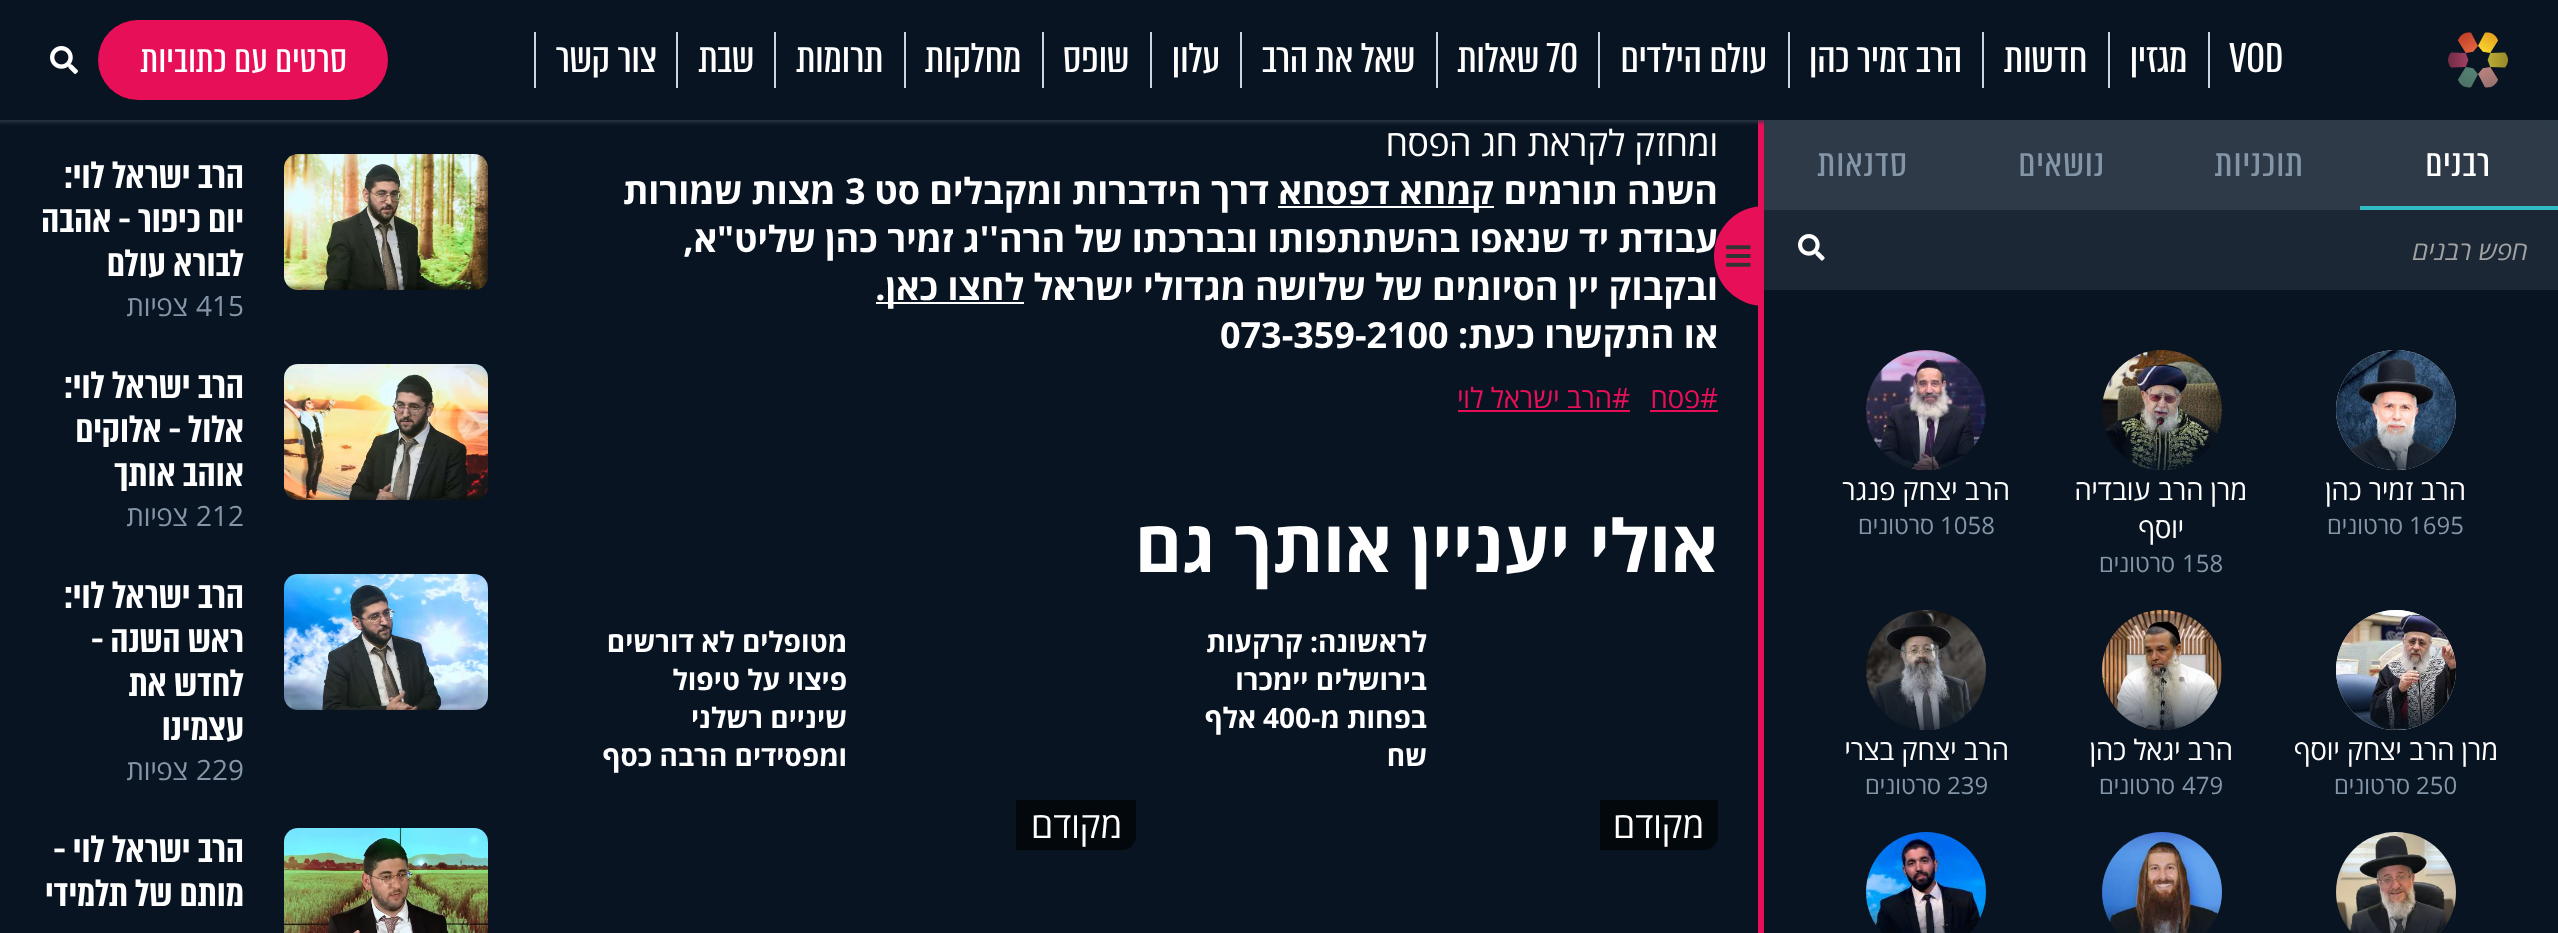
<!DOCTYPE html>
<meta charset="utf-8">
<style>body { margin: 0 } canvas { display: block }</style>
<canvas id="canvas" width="2558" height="933"></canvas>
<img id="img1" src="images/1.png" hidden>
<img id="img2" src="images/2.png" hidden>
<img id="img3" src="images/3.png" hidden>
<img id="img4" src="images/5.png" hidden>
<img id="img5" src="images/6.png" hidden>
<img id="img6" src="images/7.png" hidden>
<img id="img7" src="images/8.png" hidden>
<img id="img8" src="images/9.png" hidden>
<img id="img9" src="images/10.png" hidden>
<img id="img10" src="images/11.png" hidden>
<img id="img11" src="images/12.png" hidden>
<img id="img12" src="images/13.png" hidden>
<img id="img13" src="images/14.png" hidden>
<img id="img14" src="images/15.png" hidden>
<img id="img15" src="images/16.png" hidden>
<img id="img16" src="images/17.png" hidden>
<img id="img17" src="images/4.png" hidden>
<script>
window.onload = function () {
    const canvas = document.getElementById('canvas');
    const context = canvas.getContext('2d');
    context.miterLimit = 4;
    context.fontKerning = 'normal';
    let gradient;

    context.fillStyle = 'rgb(8, 20, 33)';
    context.fillRect(0, 0, 2558, 933);
    context.fillStyle = 'rgb(231, 15, 87)';
    context.fillRect(1758, 120, 6, 813);
    context.fillStyle = 'rgb(46, 58, 72)';
    context.fillRect(2360, 120, 198, 86);
    context.fillRect(1764, 120, 596, 90);
    context.filter = 'blur(2px)';
    context.beginPath();
    context.rect(-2, -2, 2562, 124);
    context.fill();
    context.filter = 'none';
    context.fillStyle = 'rgb(8, 20, 33)';
    context.fillRect(0, 0, 2558, 120);
    context.drawImage(document.getElementById('img1'), 2448, 32, 60, 56);
    context.fillStyle = 'rgb(200, 214, 229)';
    context.fillRect(2208, 32, 2, 56);
    context.fillRect(2108, 32, 2, 56);
    context.fillRect(1982, 32, 2, 56);
    context.fillRect(1788, 32, 2, 56);
    context.fillRect(1598, 32, 2, 56);
    context.fillRect(1436, 32, 2, 56);
    context.fillRect(1240, 32, 2, 56);
    context.fillRect(1150, 32, 2, 56);
    context.fillRect(1042, 32, 2, 56);
    context.fillRect(904, 32, 2, 56);
    context.fillRect(774, 32, 2, 56);
    context.fillRect(676, 32, 2, 56);
    context.fillRect(534, 32, 2, 56);
    context.fillStyle = 'rgb(231, 15, 87)';
    context.beginPath();
    context.roundRect(98, 20, 290, 80, 40);
    context.fill();
    context.drawImage(document.getElementById('img2'), 50, 46, 28, 28);
    context.fillStyle = 'rgb(50, 187, 195)';
    context.fillRect(2360, 206, 198, 4);
    context.fillStyle = 'rgb(27, 39, 53)';
    context.fillRect(1764, 210, 794, 80);
    context.drawImage(document.getElementById('img3'), 1798, 234, 27, 27);
    context.fillStyle = 'rgb(238, 238, 238)';
    context.beginPath();
    context.arc(2396, 410, 60, 0, 2 * Math.PI);
    context.fill();
    context.drawImage(document.getElementById('img4'), 2336, 350, 120, 120);
    gradient = context.createLinearGradient(2396, 350, 2396, 470);
    gradient.addColorStop(0.6, 'rgba(8, 20, 33, 0)');
    gradient.addColorStop(1, 'rgba(8, 20, 33, 0.76)');
    context.fillStyle = gradient;
    context.beginPath();
    context.arc(2396, 410, 60, 0, 2 * Math.PI);
    context.fill();
    context.drawImage(document.getElementById('img5'), 2102, 350, 120, 120);
    gradient = context.createLinearGradient(2162, 350, 2162, 470);
    gradient.addColorStop(0.6, 'rgba(8, 20, 33, 0)');
    gradient.addColorStop(1, 'rgba(8, 20, 33, 0.76)');
    context.fillStyle = gradient;
    context.beginPath();
    context.arc(2162, 410, 60, 0, 2 * Math.PI);
    context.fill();
    context.drawImage(document.getElementById('img6'), 1866, 350, 120, 120);
    gradient = context.createLinearGradient(1926, 350, 1926, 470);
    gradient.addColorStop(0.6, 'rgba(8, 20, 33, 0)');
    gradient.addColorStop(1, 'rgba(8, 20, 33, 0.76)');
    context.fillStyle = gradient;
    context.beginPath();
    context.arc(1926, 410, 60, 0, 2 * Math.PI);
    context.fill();
    context.fillStyle = 'rgb(238, 238, 238)';
    context.beginPath();
    context.arc(2396, 670, 60, 0, 2 * Math.PI);
    context.fill();
    context.drawImage(document.getElementById('img7'), 2336, 610, 120, 120);
    gradient = context.createLinearGradient(2396, 610, 2396, 730);
    gradient.addColorStop(0.6, 'rgba(8, 20, 33, 0)');
    gradient.addColorStop(1, 'rgba(8, 20, 33, 0.76)');
    context.fillStyle = gradient;
    context.beginPath();
    context.arc(2396, 670, 60, 0, 2 * Math.PI);
    context.fill();
    context.drawImage(document.getElementById('img8'), 2102, 610, 120, 120);
    gradient = context.createLinearGradient(2162, 610, 2162, 730);
    gradient.addColorStop(0.6, 'rgba(8, 20, 33, 0)');
    gradient.addColorStop(1, 'rgba(8, 20, 33, 0.76)');
    context.fillStyle = gradient;
    context.beginPath();
    context.arc(2162, 670, 60, 0, 2 * Math.PI);
    context.fill();
    context.drawImage(document.getElementById('img9'), 1866, 610, 120, 120);
    gradient = context.createLinearGradient(1926, 610, 1926, 730);
    gradient.addColorStop(0.6, 'rgba(8, 20, 33, 0)');
    gradient.addColorStop(1, 'rgba(8, 20, 33, 0.76)');
    context.fillStyle = gradient;
    context.beginPath();
    context.arc(1926, 670, 60, 0, 2 * Math.PI);
    context.fill();
    context.drawImage(document.getElementById('img10'), 2336, 832, 120, 101);
    context.save();
    context.beginPath();
    context.roundRect(2336, 832, 120, 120, 60);
    context.clip();
    gradient = context.createLinearGradient(2396, 832, 2396, 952);
    gradient.addColorStop(0.6, 'rgba(8, 20, 33, 0)');
    gradient.addColorStop(1, 'rgba(8, 20, 33, 0.76)');
    context.fillStyle = gradient;
    context.beginPath();
    context.moveTo(2396, 832);
    context.bezierCurveTo(2429, 832, 2456, 859, 2456, 892);
    context.lineTo(2456, 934);
    context.lineTo(2336, 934);
    context.lineTo(2336, 892);
    context.bezierCurveTo(2336, 859, 2363, 832, 2396, 832);
    context.closePath();
    context.fill();
    context.restore();
    context.drawImage(document.getElementById('img11'), 2102, 832, 120, 101);
    context.save();
    context.beginPath();
    context.roundRect(2102, 832, 120, 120, 60);
    context.clip();
    gradient = context.createLinearGradient(2162, 832, 2162, 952);
    gradient.addColorStop(0.6, 'rgba(8, 20, 33, 0)');
    gradient.addColorStop(1, 'rgba(8, 20, 33, 0.76)');
    context.fillStyle = gradient;
    context.beginPath();
    context.moveTo(2162, 832);
    context.bezierCurveTo(2195, 832, 2222, 859, 2222, 892);
    context.lineTo(2222, 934);
    context.lineTo(2102, 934);
    context.lineTo(2102, 892);
    context.bezierCurveTo(2102, 859, 2129, 832, 2162, 832);
    context.closePath();
    context.fill();
    context.restore();
    context.drawImage(document.getElementById('img12'), 1866, 832, 120, 101);
    context.save();
    context.beginPath();
    context.roundRect(1866, 832, 120, 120, 60);
    context.clip();
    gradient = context.createLinearGradient(1926, 832, 1926, 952);
    gradient.addColorStop(0.6, 'rgba(8, 20, 33, 0)');
    gradient.addColorStop(1, 'rgba(8, 20, 33, 0.76)');
    context.fillStyle = gradient;
    context.beginPath();
    context.moveTo(1926, 832);
    context.bezierCurveTo(1959, 832, 1986, 859, 1986, 892);
    context.lineTo(1986, 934);
    context.lineTo(1866, 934);
    context.lineTo(1866, 892);
    context.bezierCurveTo(1866, 859, 1893, 832, 1926, 832);
    context.closePath();
    context.fill();
    context.restore();
    context.fillStyle = 'rgb(255, 255, 255)';
    context.fillRect(1278, 206, 216, 2);
    context.fillRect(876, 302, 148, 2);
    context.fillStyle = 'rgb(231, 15, 87)';
    context.fillRect(1650, 410, 68, 2);
    context.fillRect(1458, 410, 172, 2);
    context.fillStyle = 'rgb(3, 8, 13)';
    context.beginPath();
    context.roundRect(1600, 800, 118, 50, [0, 0, 14, 0]);
    context.fill();
    context.beginPath();
    context.roundRect(1016, 800, 120, 50, [0, 0, 14, 0]);
    context.fill();
    context.drawImage(document.getElementById('img13'), 284, 154, 204, 136);
    context.drawImage(document.getElementById('img14'), 284, 364, 204, 136);
    context.drawImage(document.getElementById('img15'), 284, 574, 204, 136);
    context.drawImage(document.getElementById('img16'), 284, 828, 204, 105);
    context.letterSpacing = '-0.4px';
    context.font = '48px "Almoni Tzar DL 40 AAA"';
    context.fillStyle = 'rgb(255, 255, 255)';
    context.fillText('VOD', 2229, 72);
    context.direction = 'rtl';
    context.fillText('מגזין', 2187, 72);
    context.fillText('חדשות', 2087, 72);
    context.fillText('הרב זמיר כהן', 1962, 72);
    context.fillText('עולם הילדים', 1767, 72);
    context.direction = 'ltr';
    context.fillText('70', 1546, 72);
    context.direction = 'rtl';
    context.fillText('שאלות', 1539, 72);
    context.fillText('שאל את הרב', 1415, 72);
    context.fillText('עלון', 1220, 72);
    context.fillText('שופס', 1129, 72);
    context.fillText('מחלקות', 1021, 72);
    context.fillText('תרומות', 883, 72);
    context.fillText('שבת', 754, 72);
    context.fillText('צור קשר', 657, 72);
    context.letterSpacing = '0px';
    context.font = '44px "Almoni Tzar DL 40 AAA"';
    context.fillText('סרטים עם כתוביות', 347, 72);
    context.letterSpacing = '1px';
    context.fillText('רבנים', 2491, 176);
    context.fillStyle = 'rgb(131, 149, 167)';
    context.fillText('תוכניות', 2304, 176);
    context.fillText('נושאים', 2105, 176);
    context.fillText('סדנאות', 1908, 176);
    context.letterSpacing = '0px';
    context.font = 'italic 26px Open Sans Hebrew';
    context.fillStyle = 'rgb(161, 161, 161)';
    context.fillText('חפש רבנים', 2528, 260);
    context.font = '28px Open Sans Hebrew';
    context.fillStyle = 'rgb(255, 255, 255)';
    context.fillText('הרב זמיר כהן', 2466, 500);
    context.direction = 'ltr';
    context.font = '24px Open Sans Hebrew';
    context.fillStyle = 'rgb(131, 149, 167)';
    context.fillText('1695', 2409, 534);
    context.direction = 'rtl';
    context.fillText('סרטונים', 2403, 534);
    context.font = '28px Open Sans Hebrew';
    context.fillStyle = 'rgb(255, 255, 255)';
    context.fillText('מרן הרב עובדיה', 2247, 500);
    context.fillText('יוסף', 2184, 538);
    context.direction = 'ltr';
    context.font = '24px Open Sans Hebrew';
    context.fillStyle = 'rgb(131, 149, 167)';
    context.fillText('158', 2182, 572);
    context.direction = 'rtl';
    context.fillText('סרטונים', 2175, 572);
    context.font = '28px Open Sans Hebrew';
    context.fillStyle = 'rgb(255, 255, 255)';
    context.fillText('הרב יצחק פנגר', 2010, 500);
    context.direction = 'ltr';
    context.font = '24px Open Sans Hebrew';
    context.fillStyle = 'rgb(131, 149, 167)';
    context.fillText('1058', 1940, 534);
    context.direction = 'rtl';
    context.fillText('סרטונים', 1934, 534);
    context.font = '28px Open Sans Hebrew';
    context.fillStyle = 'rgb(255, 255, 255)';
    context.fillText('מרן הרב יצחק יוסף', 2498, 760);
    context.direction = 'ltr';
    context.font = '24px Open Sans Hebrew';
    context.fillStyle = 'rgb(131, 149, 167)';
    context.fillText('250', 2416, 794);
    context.direction = 'rtl';
    context.fillText('סרטונים', 2410, 794);
    context.font = '28px Open Sans Hebrew';
    context.fillStyle = 'rgb(255, 255, 255)';
    context.fillText('הרב יגאל כהן', 2233, 760);
    context.direction = 'ltr';
    context.font = '24px Open Sans Hebrew';
    context.fillStyle = 'rgb(131, 149, 167)';
    context.fillText('479', 2182, 794);
    context.direction = 'rtl';
    context.fillText('סרטונים', 2175, 794);
    context.font = '28px Open Sans Hebrew';
    context.fillStyle = 'rgb(255, 255, 255)';
    context.fillText('הרב יצחק בצרי', 2009, 760);
    context.direction = 'ltr';
    context.font = '24px Open Sans Hebrew';
    context.fillStyle = 'rgb(131, 149, 167)';
    context.fillText('239', 1947, 794);
    context.direction = 'rtl';
    context.fillText('סרטונים', 1941, 794);
    context.font = '36px Open Sans Hebrew';
    context.fillStyle = 'rgb(255, 255, 255)';
    context.fillText('ומחזק לקראת חג הפסח', 1718, 156);
    context.font = 'bold 36px Open Sans Hebrew';
    context.fillText('השנה תורמים', 1718, 204);
    context.fillText('קמחא דפסחא', 1494, 204);
    context.fillText('דרך הידברות ומקבלים סט', 1269, 204);
    context.direction = 'ltr';
    context.fillText('3', 845, 204);
    context.direction = 'rtl';
    context.fillText('מצות שמורות', 835, 204);
    context.fillText('עבודת יד שנאפו בהשתתפותו ובברכתו של הרה\'\'ג זמיר כהן שליט"א,', 1718, 252);
    context.fillText('ובקבוק יין הסיומים של שלושה מגדולי ישראל', 1718, 300);
    context.fillStyle = 'rgb(231, 15, 87)';
    context.beginPath();
    context.roundRect(1714, 206, 50, 100, [50, 0, 0, 50]);
    context.fill();
    context.drawImage(document.getElementById('img17'), 1726, 245, 25, 22);
    context.fillStyle = 'rgb(255, 255, 255)';
    context.fillText('לחצו כאן.', 1024, 300);
    context.fillText('או התקשרו כעת:', 1718, 348);
    context.direction = 'ltr';
    context.fillText('073-359-2100', 1220, 348);
    context.font = '28px Open Sans Hebrew';
    context.fillStyle = 'rgb(231, 15, 87)';
    context.fillText('#', 1700, 408);
    context.direction = 'rtl';
    context.fillText('פסח', 1700, 408);
    context.direction = 'ltr';
    context.fillText('#', 1612, 408);
    context.direction = 'rtl';
    context.fillText('הרב ישראל לוי', 1612, 408);
    context.font = 'bold 72px Open Sans Hebrew';
    context.fillStyle = 'rgb(255, 255, 255)';
    context.fillText('אולי יעניין אותך גם', 1718, 572);
    context.font = 'bold 28px Open Sans Hebrew';
    context.fillText('לראשונה: קרקעות', 1427, 652);
    context.fillText('בירושלים יימכרו', 1427, 690);
    context.fillText('בפחות מ-', 1427, 728);
    context.direction = 'ltr';
    context.fillText('400', 1263, 728);
    context.direction = 'rtl';
    context.fillText('אלף', 1256, 728);
    context.fillText('שח', 1427, 766);
    context.font = '36px Open Sans Hebrew';
    context.fillText('מקודם', 1704, 838);
    context.font = 'bold 28px Open Sans Hebrew';
    context.fillText('מטופלים לא דורשים', 847, 652);
    context.fillText('פיצוי על טיפול', 847, 690);
    context.fillText('שיניים רשלני', 847, 728);
    context.fillText('ומפסידים הרבה כסף', 847, 766);
    context.font = '36px Open Sans Hebrew';
    context.fillText('מקודם', 1122, 838);
    context.font = '600 44px "Almoni Tzar DL 40 AAA"';
    context.fillText('הרב ישראל לוי:', 244, 188);
    context.fillText('יום כיפור - אהבה', 244, 232);
    context.fillText('לבורא עולם', 244, 276);
    context.direction = 'ltr';
    context.font = '28px Open Sans Hebrew';
    context.fillStyle = 'rgb(131, 149, 167)';
    context.fillText('415', 196, 316);
    context.direction = 'rtl';
    context.fillText('צפיות', 188, 316);
    context.font = '600 44px "Almoni Tzar DL 40 AAA"';
    context.fillStyle = 'rgb(255, 255, 255)';
    context.fillText('הרב ישראל לוי:', 244, 398);
    context.fillText('אלול - אלוקים', 244, 442);
    context.fillText('אוהב אותך', 244, 486);
    context.direction = 'ltr';
    context.font = '28px Open Sans Hebrew';
    context.fillStyle = 'rgb(131, 149, 167)';
    context.fillText('212', 196, 526);
    context.direction = 'rtl';
    context.fillText('צפיות', 188, 526);
    context.font = '600 44px "Almoni Tzar DL 40 AAA"';
    context.fillStyle = 'rgb(255, 255, 255)';
    context.fillText('הרב ישראל לוי:', 244, 608);
    context.fillText('ראש השנה -', 244, 652);
    context.fillText('לחדש את', 244, 696);
    context.fillText('עצמינו', 244, 740);
    context.direction = 'ltr';
    context.font = '28px Open Sans Hebrew';
    context.fillStyle = 'rgb(131, 149, 167)';
    context.fillText('229', 196, 780);
    context.direction = 'rtl';
    context.fillText('צפיות', 188, 780);
    context.font = '600 44px "Almoni Tzar DL 40 AAA"';
    context.fillStyle = 'rgb(255, 255, 255)';
    context.fillText('הרב ישראל לוי -', 244, 862);
    context.fillText('מותם של תלמידי', 244, 906);
};
</script>
